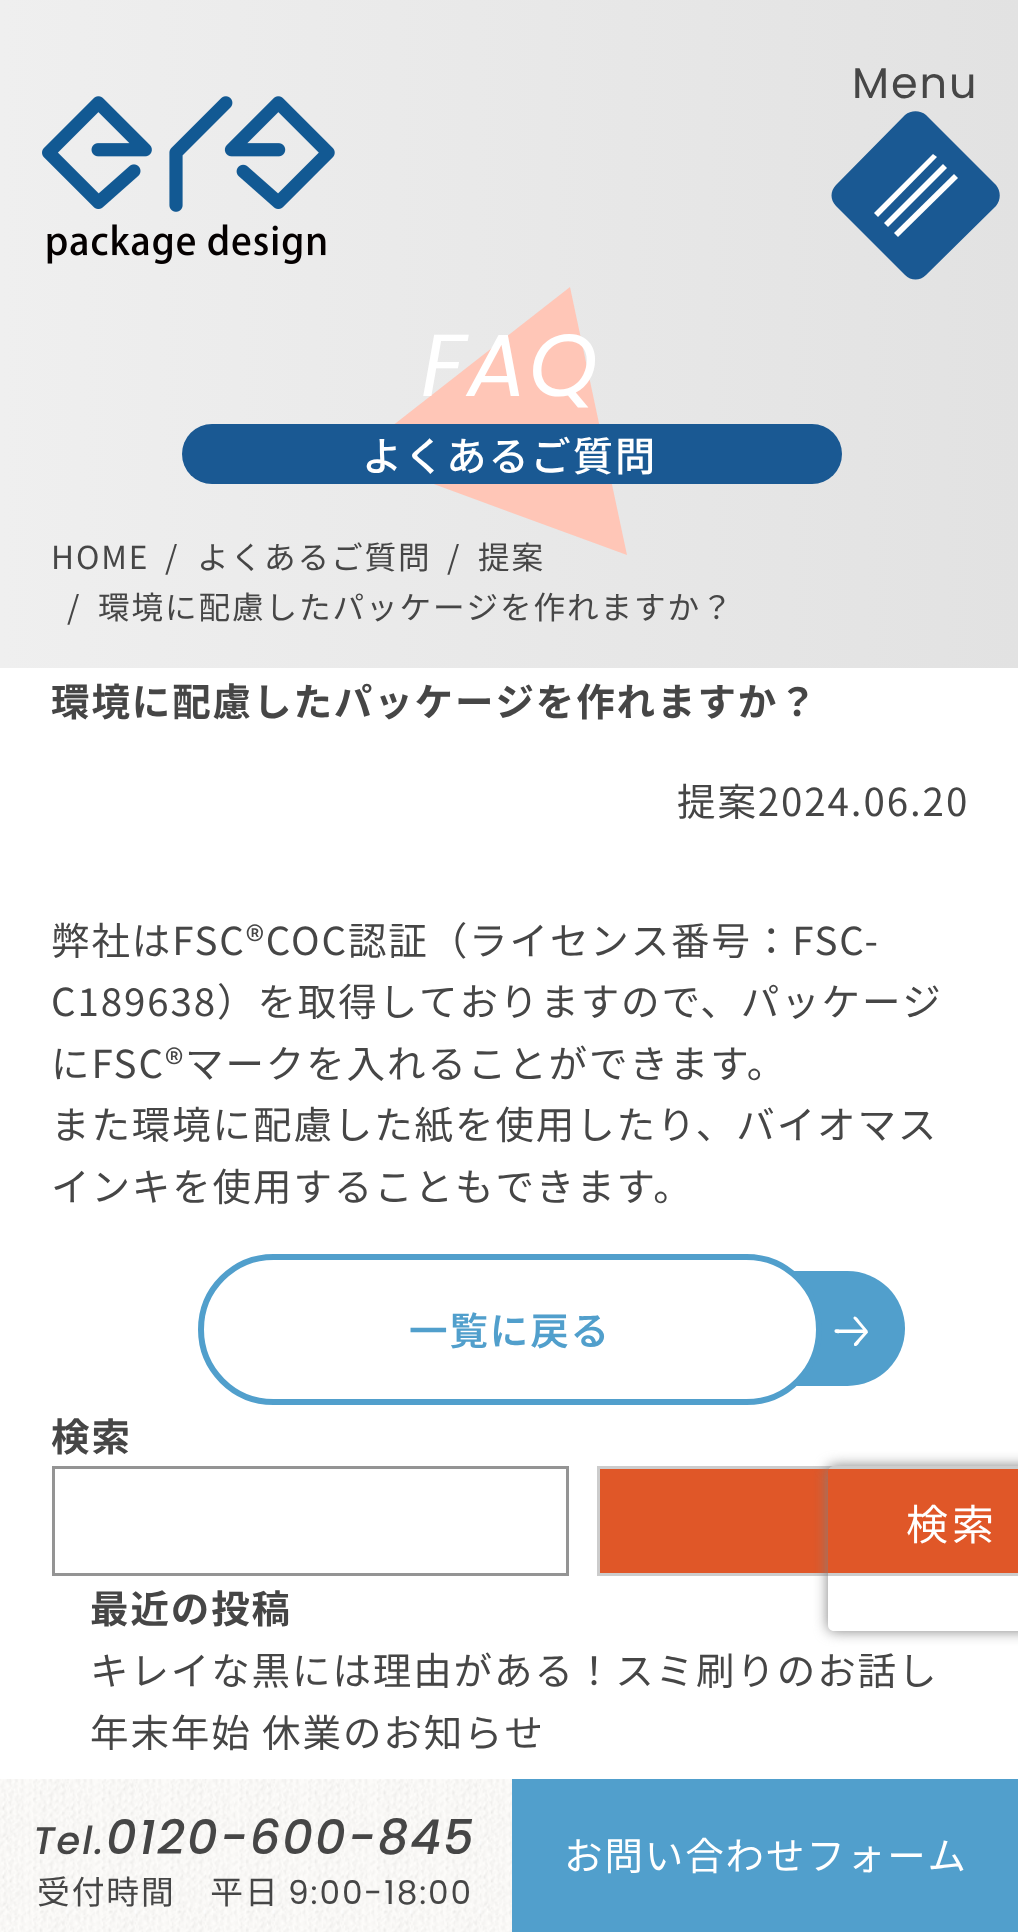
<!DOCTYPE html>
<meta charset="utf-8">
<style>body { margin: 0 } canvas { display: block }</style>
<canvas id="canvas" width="1018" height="1932"></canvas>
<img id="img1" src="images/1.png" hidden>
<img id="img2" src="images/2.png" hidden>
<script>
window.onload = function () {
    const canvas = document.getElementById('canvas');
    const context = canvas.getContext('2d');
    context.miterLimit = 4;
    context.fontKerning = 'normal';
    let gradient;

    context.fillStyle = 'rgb(255, 255, 255)';
    context.fillRect(0, 0, 1018, 1932);
    gradient = context.createLinearGradient(0, 334, 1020, 334);
    gradient.addColorStop(0, 'rgb(239, 239, 239)');
    gradient.addColorStop(1, 'rgb(226, 226, 226)');
    context.fillStyle = gradient;
    context.fillRect(0, 0, 1018, 668);
    context.fillStyle = 'rgb(26, 89, 147)';
    context.beginPath();
    context.moveTo(836, 185);
    context.lineTo(905, 115);
    context.bezierCurveTo(911, 110, 920, 110, 926, 115);
    context.lineTo(996, 185);
    context.bezierCurveTo(1001, 191, 1001, 200, 996, 206);
    context.lineTo(926, 275);
    context.bezierCurveTo(920, 281, 911, 281, 905, 275);
    context.lineTo(836, 206);
    context.bezierCurveTo(830, 200, 830, 191, 836, 185);
    context.closePath();
    context.fill();
    context.fillStyle = 'rgb(255, 255, 255)';
    context.beginPath();
    context.moveTo(874, 213);
    context.lineTo(933, 154);
    context.lineTo(937, 157);
    context.lineTo(878, 217);
    context.closePath();
    context.fill();
    context.beginPath();
    context.moveTo(884, 223);
    context.lineTo(943, 164);
    context.lineTo(947, 168);
    context.lineTo(888, 227);
    context.closePath();
    context.fill();
    context.beginPath();
    context.moveTo(894, 233);
    context.lineTo(954, 174);
    context.lineTo(958, 178);
    context.lineTo(898, 237);
    context.closePath();
    context.fill();
    context.drawImage(document.getElementById('img1'), 42, 96, 293, 168);
    context.fillStyle = 'rgb(81, 159, 204)';
    context.beginPath();
    context.roundRect(294, 1271, 611, 115, 57.5);
    context.fill();
    context.fillStyle = 'rgb(255, 255, 255)';
    context.beginPath();
    context.roundRect(201, 1257, 618, 145, 72.5);
    context.fill();
    context.strokeStyle = 'rgb(81, 159, 204)';
    context.lineWidth = 6;
    context.stroke();
    context.beginPath();
    context.moveTo(867.5, 1330.5);
    context.lineTo(860, 1321.5);
    context.bezierCurveTo(860, 1321.5, 855, 1313.5, 853.5, 1317.5);
    context.lineTo(853.5, 1318.5);
    context.lineTo(863, 1329.5);
    context.lineTo(839.5, 1329.5);
    context.bezierCurveTo(838.5, 1329.5, 834.5, 1328.5, 834.5, 1331);
    context.bezierCurveTo(834, 1334, 839.5, 1333, 840.5, 1333);
    context.lineTo(863.5, 1333);
    context.lineTo(854, 1343.5);
    context.bezierCurveTo(854, 1344.5, 854, 1345.5, 854.5, 1346);
    context.lineTo(856, 1346);
    context.bezierCurveTo(857.5, 1346, 859.5, 1342, 860.5, 1341);
    context.lineTo(868, 1332.5);
    context.closePath();
    context.fill();
    context.strokeStyle = 'rgb(148, 148, 148)';
    context.lineWidth = 3;
    context.strokeRect(53.5, 1467.5, 514, 107);
    context.fillStyle = 'rgb(224, 87, 40)';
    context.beginPath();
    context.rect(598.5, 1467.5, 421, 107);
    context.fill();
    context.strokeStyle = 'rgb(204, 204, 204)';
    context.stroke();
    context.drawImage(document.getElementById('img2'), 0, 1779, 512, 153);
    context.fillStyle = 'rgb(81, 159, 204)';
    context.fillRect(512, 1779, 506, 153);
    context.save();
    context.beginPath();
    context.moveTo(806, 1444);
    context.lineTo(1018, 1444);
    context.lineTo(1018, 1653);
    context.lineTo(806, 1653);
    context.closePath();
    context.moveTo(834, 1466);
    context.lineTo(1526, 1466);
    context.bezierCurveTo(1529.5, 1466, 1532, 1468.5, 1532, 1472);
    context.lineTo(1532, 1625);
    context.bezierCurveTo(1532, 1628.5, 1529.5, 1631, 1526, 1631);
    context.lineTo(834, 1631);
    context.bezierCurveTo(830.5, 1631, 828, 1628.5, 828, 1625);
    context.lineTo(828, 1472);
    context.bezierCurveTo(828, 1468.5, 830.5, 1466, 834, 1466);
    context.closePath();
    context.clip('evenodd');
    context.fillStyle = 'rgb(128, 128, 128)';
    context.filter = 'blur(7px)';
    context.beginPath();
    context.roundRect(828, 1466, 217, 165, 6);
    context.fill();
    context.filter = 'none';
    context.restore();
    context.letterSpacing = '1.9px';
    context.font = '43px Poppins';
    context.fillStyle = 'rgb(70, 70, 70)';
    context.fillText('Menu', 852, 98);
    context.font = '31.6px Noto Sans JP';
    context.fillText('HOME', 51, 569);
    context.fillText('/', 165, 569);
    context.fillText('よくあるご質問', 197, 569);
    context.fillText('/', 447, 569);
    context.fillText('提案', 478, 569);
    context.fillStyle = 'rgb(255, 198, 183)';
    context.beginPath();
    context.moveTo(515, 514);
    context.lineTo(355, 455);
    context.lineTo(570, 287);
    context.lineTo(627, 555);
    context.closePath();
    context.fill();
    context.fillStyle = 'rgb(26, 89, 147)';
    context.beginPath();
    context.roundRect(182, 424, 660, 60, 30);
    context.fill();
    context.font = '500 40.25px Noto Sans JP';
    context.fillStyle = 'rgb(255, 255, 255)';
    context.fillText('よくあるご質問', 362, 471);
    context.font = 'italic 88px Poppins';
    context.fillText('FAQ', 421, 396);
    context.font = '31.6px Noto Sans JP';
    context.fillStyle = 'rgb(70, 70, 70)';
    context.fillText('/', 67, 619);
    context.fillText('環境に配慮したパッケージを作れますか？', 98, 619);
    context.font = 'bold 38.5px Noto Sans JP';
    context.fillText('環境に配慮したパッケージを作れますか？', 51, 716);
    context.font = '38.5px Noto Sans JP';
    context.fillText('提案2024.06.20', 677, 816);
    context.fillText('弊社はFSC®︎COC認証（ライセンス番号：FSC-', 51, 955);
    context.fillText('C189638）を取得しておりますので、パッケージ', 51, 1016);
    context.fillText('にFSC®︎マークを入れることができます。', 51, 1078);
    context.fillText('また環境に配慮した紙を使用したり、バイオマス', 51, 1139);
    context.fillText('インキを使用することもできます。', 51, 1201);
    context.font = '600 38.5px Noto Sans JP';
    context.fillStyle = 'rgb(81, 159, 204)';
    context.fillText('一覧に戻る', 409, 1345);
    context.font = 'bold 38.5px Noto Sans JP';
    context.fillStyle = 'rgb(70, 70, 70)';
    context.fillText('検索', 51, 1451);
    context.letterSpacing = '4px';
    context.font = '42px Noto Sans JP';
    context.fillStyle = 'rgb(255, 255, 255)';
    context.fillText('検索', 906, 1540);
    context.letterSpacing = '1.9px';
    context.font = 'bold 38.5px Noto Sans JP';
    context.fillStyle = 'rgb(70, 70, 70)';
    context.fillText('最近の投稿', 90, 1623);
    context.font = '38.5px Noto Sans JP';
    context.fillText('キレイな黒には理由がある！スミ刷りのお話し', 90, 1685);
    context.fillText('年末年始 休業のお知らせ', 90, 1747);
    context.font = 'italic 500 38.5px Poppins';
    context.fillText('Tel.', 33, 1854);
    context.font = 'italic 500 48px Poppins';
    context.fillText('0120-600-845', 106, 1854);
    context.font = '32.75px Noto Sans JP';
    context.fillText('受付時間　平日', 37, 1904);
    context.font = '32.75px Poppins';
    context.fillText('9:00-18:00', 288, 1904);
    context.font = '38.5px Noto Sans JP';
    context.fillStyle = 'rgb(255, 255, 255)';
    context.fillText('お問い合わせフォーム', 564, 1870);
};
</script>
